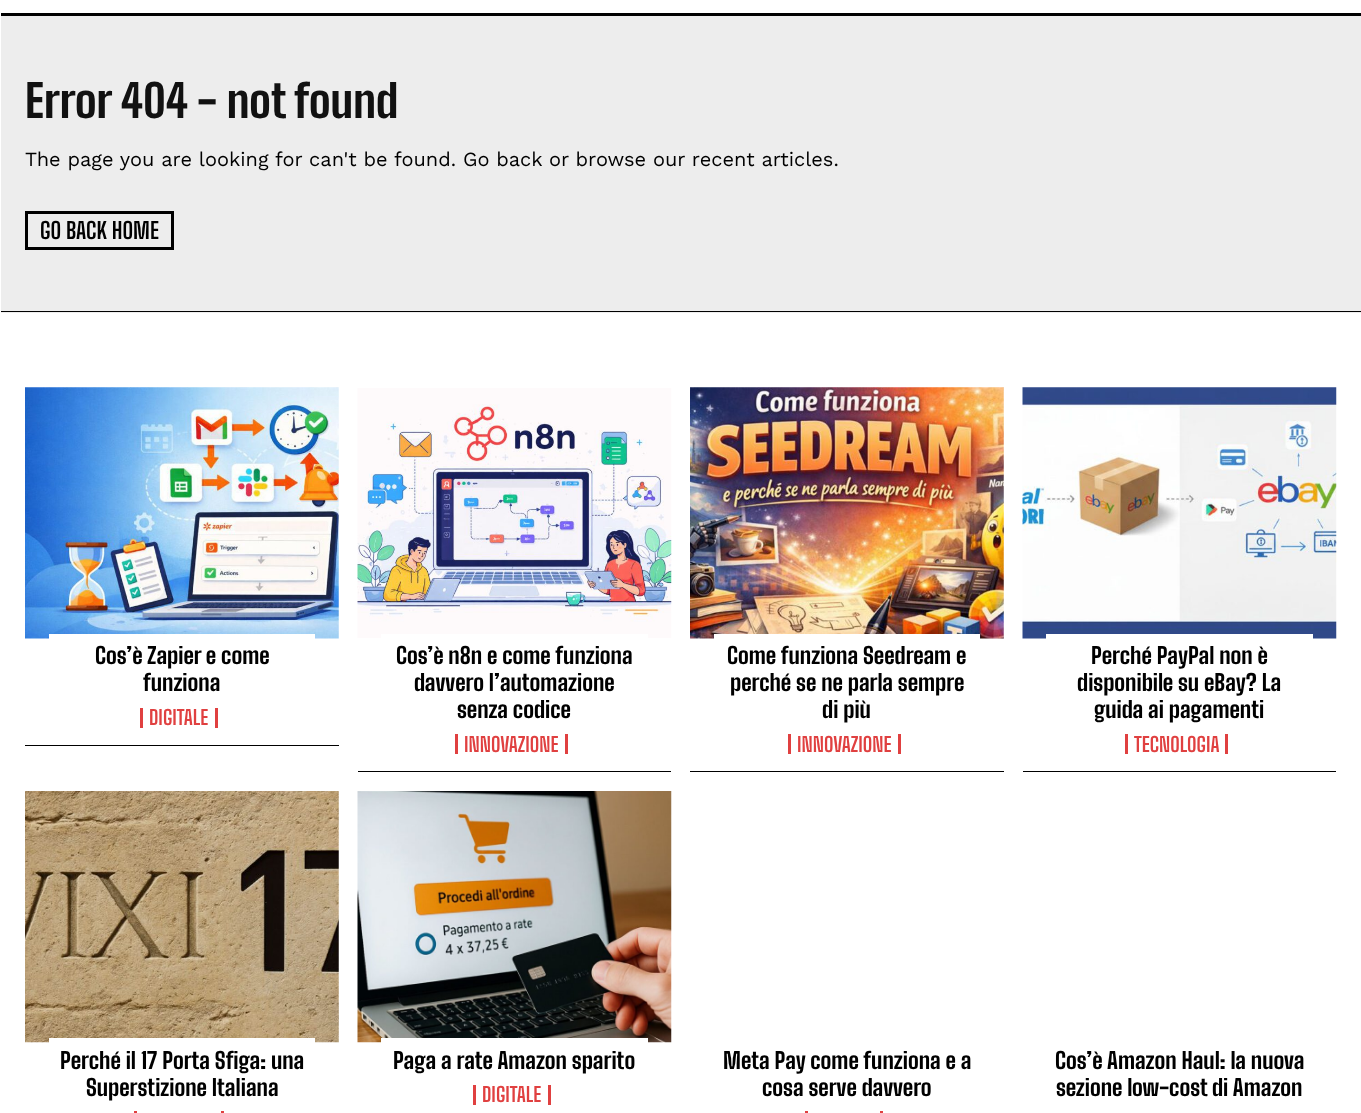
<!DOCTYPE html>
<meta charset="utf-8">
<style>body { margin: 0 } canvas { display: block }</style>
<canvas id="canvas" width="1361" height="1113"></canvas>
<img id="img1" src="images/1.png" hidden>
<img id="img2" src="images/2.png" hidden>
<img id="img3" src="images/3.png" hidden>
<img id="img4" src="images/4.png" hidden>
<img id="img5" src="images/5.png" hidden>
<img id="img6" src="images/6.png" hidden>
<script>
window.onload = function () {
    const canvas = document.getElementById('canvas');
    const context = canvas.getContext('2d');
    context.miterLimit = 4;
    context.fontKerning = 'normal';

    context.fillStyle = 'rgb(255, 255, 255)';
    context.fillRect(0, 0, 1361, 1113);
    context.fillStyle = 'rgb(0, 0, 0)';
    context.fillRect(1, 13, 1360, 3);
    context.fillStyle = 'rgb(237, 237, 237)';
    context.fillRect(1, 16, 1360, 297);
    context.fillStyle = 'rgb(0, 0, 0)';
    context.fillRect(1, 311, 1360, 1);
    context.strokeStyle = 'rgb(0, 0, 0)';
    context.lineWidth = 3;
    context.strokeRect(26.5, 212.5, 146, 36);
    context.drawImage(document.getElementById('img1'), 25, 387, 314, 252);
    context.fillStyle = 'rgb(255, 255, 255)';
    context.fillRect(49, 634, 266, 5);
    context.fillStyle = 'rgb(224, 64, 64)';
    context.fillRect(215, 708, 3, 20);
    context.fillRect(140, 708, 3, 20);
    context.fillStyle = 'rgb(0, 0, 0)';
    context.fillRect(25, 745, 314, 1);
    context.drawImage(document.getElementById('img2'), 357, 388, 315, 250);
    context.fillStyle = 'rgb(255, 255, 255)';
    context.fillRect(381, 634, 267, 4);
    context.fillStyle = 'rgb(224, 64, 64)';
    context.fillRect(565, 734, 3, 20);
    context.fillRect(455, 734, 3, 20);
    context.fillStyle = 'rgb(0, 0, 0)';
    context.fillRect(358, 771, 313, 1);
    context.drawImage(document.getElementById('img3'), 690, 387, 314, 252);
    context.fillStyle = 'rgb(255, 255, 255)';
    context.fillRect(714, 634, 266, 5);
    context.fillStyle = 'rgb(224, 64, 64)';
    context.fillRect(898, 734, 3, 20);
    context.fillRect(788, 734, 3, 20);
    context.fillStyle = 'rgb(0, 0, 0)';
    context.fillRect(690, 771, 314, 1);
    context.drawImage(document.getElementById('img4'), 1022, 387, 315, 252);
    context.fillStyle = 'rgb(255, 255, 255)';
    context.fillRect(1046, 634, 267, 5);
    context.fillStyle = 'rgb(224, 64, 64)';
    context.fillRect(1225, 734, 3, 20);
    context.fillRect(1125, 734, 3, 20);
    context.fillStyle = 'rgb(0, 0, 0)';
    context.fillRect(1023, 771, 313, 1);
    context.drawImage(document.getElementById('img5'), 25, 791, 314, 252);
    context.fillStyle = 'rgb(255, 255, 255)';
    context.fillRect(49, 1038, 266, 5);
    context.fillStyle = 'rgb(224, 64, 64)';
    context.fillRect(221, 1111, 3, 2);
    context.fillRect(134, 1111, 3, 2);
    context.drawImage(document.getElementById('img6'), 357, 791, 315, 252);
    context.fillStyle = 'rgb(255, 255, 255)';
    context.fillRect(381, 1038, 267, 5);
    context.fillStyle = 'rgb(224, 64, 64)';
    context.fillRect(548, 1085, 3, 20);
    context.fillRect(473, 1085, 3, 20);
    context.fillRect(880, 1111, 3, 2);
    context.fillRect(805, 1111, 3, 2);
    context.font = '800 45px Big Shoulders Text';
    context.fillStyle = 'rgb(17, 17, 17)';
    context.fillText('Error 404 - not found', 25, 118);
    context.font = '20px Work Sans';
    context.fillStyle = 'rgb(0, 0, 0)';
    context.fillText('The page you are looking for can\'t be found. Go back or browse our recent articles.', 25, 166);
    context.font = 'bold 22.5px Big Shoulders Text';
    context.fillText('GO BACK HOME', 40, 239);
    context.font = '800 22.5px Big Shoulders Text';
    context.fillText('Cos’è Zapier e come', 95, 664);
    context.fillText('funziona', 143, 691);
    context.font = 'bold 20px Big Shoulders Text';
    context.fillStyle = 'rgb(224, 64, 64)';
    context.fillText('DIGITALE', 149, 725);
    context.font = '800 22.5px Big Shoulders Text';
    context.fillStyle = 'rgb(0, 0, 0)';
    context.fillText('Cos’è n8n e come funziona', 396, 664);
    context.fillText('davvero l’automazione', 414, 691);
    context.fillText('senza codice', 457, 718);
    context.font = 'bold 20px Big Shoulders Text';
    context.fillStyle = 'rgb(224, 64, 64)';
    context.fillText('INNOVAZIONE', 464, 752);
    context.font = '800 22.5px Big Shoulders Text';
    context.fillStyle = 'rgb(0, 0, 0)';
    context.fillText('Come funziona Seedream e', 727, 664);
    context.fillText('perché se ne parla sempre', 730, 691);
    context.fillText('di più', 822, 718);
    context.font = 'bold 20px Big Shoulders Text';
    context.fillStyle = 'rgb(224, 64, 64)';
    context.fillText('INNOVAZIONE', 797, 752);
    context.font = '800 22.5px Big Shoulders Text';
    context.fillStyle = 'rgb(0, 0, 0)';
    context.fillText('Perché PayPal non è', 1091, 664);
    context.fillText('disponibile su eBay? La', 1077, 691);
    context.fillText('guida ai pagamenti', 1094, 718);
    context.font = 'bold 20px Big Shoulders Text';
    context.fillStyle = 'rgb(224, 64, 64)';
    context.fillText('TECNOLOGIA', 1134, 752);
    context.font = '800 22.5px Big Shoulders Text';
    context.fillStyle = 'rgb(0, 0, 0)';
    context.fillText('Perché il 17 Porta Sfiga: una', 60, 1069);
    context.fillText('Superstizione Italiana', 86, 1096);
    context.fillText('Paga a rate Amazon sparito', 393, 1069);
    context.font = 'bold 20px Big Shoulders Text';
    context.fillStyle = 'rgb(224, 64, 64)';
    context.fillText('DIGITALE', 482, 1102);
    context.font = '800 22.5px Big Shoulders Text';
    context.fillStyle = 'rgb(0, 0, 0)';
    context.fillText('Meta Pay come funziona e a', 723, 1069);
    context.fillText('cosa serve davvero', 762, 1096);
    context.fillText('Cos’è Amazon Haul: la nuova', 1055, 1069);
    context.fillText('sezione low-cost di Amazon', 1056, 1096);
};
</script>
